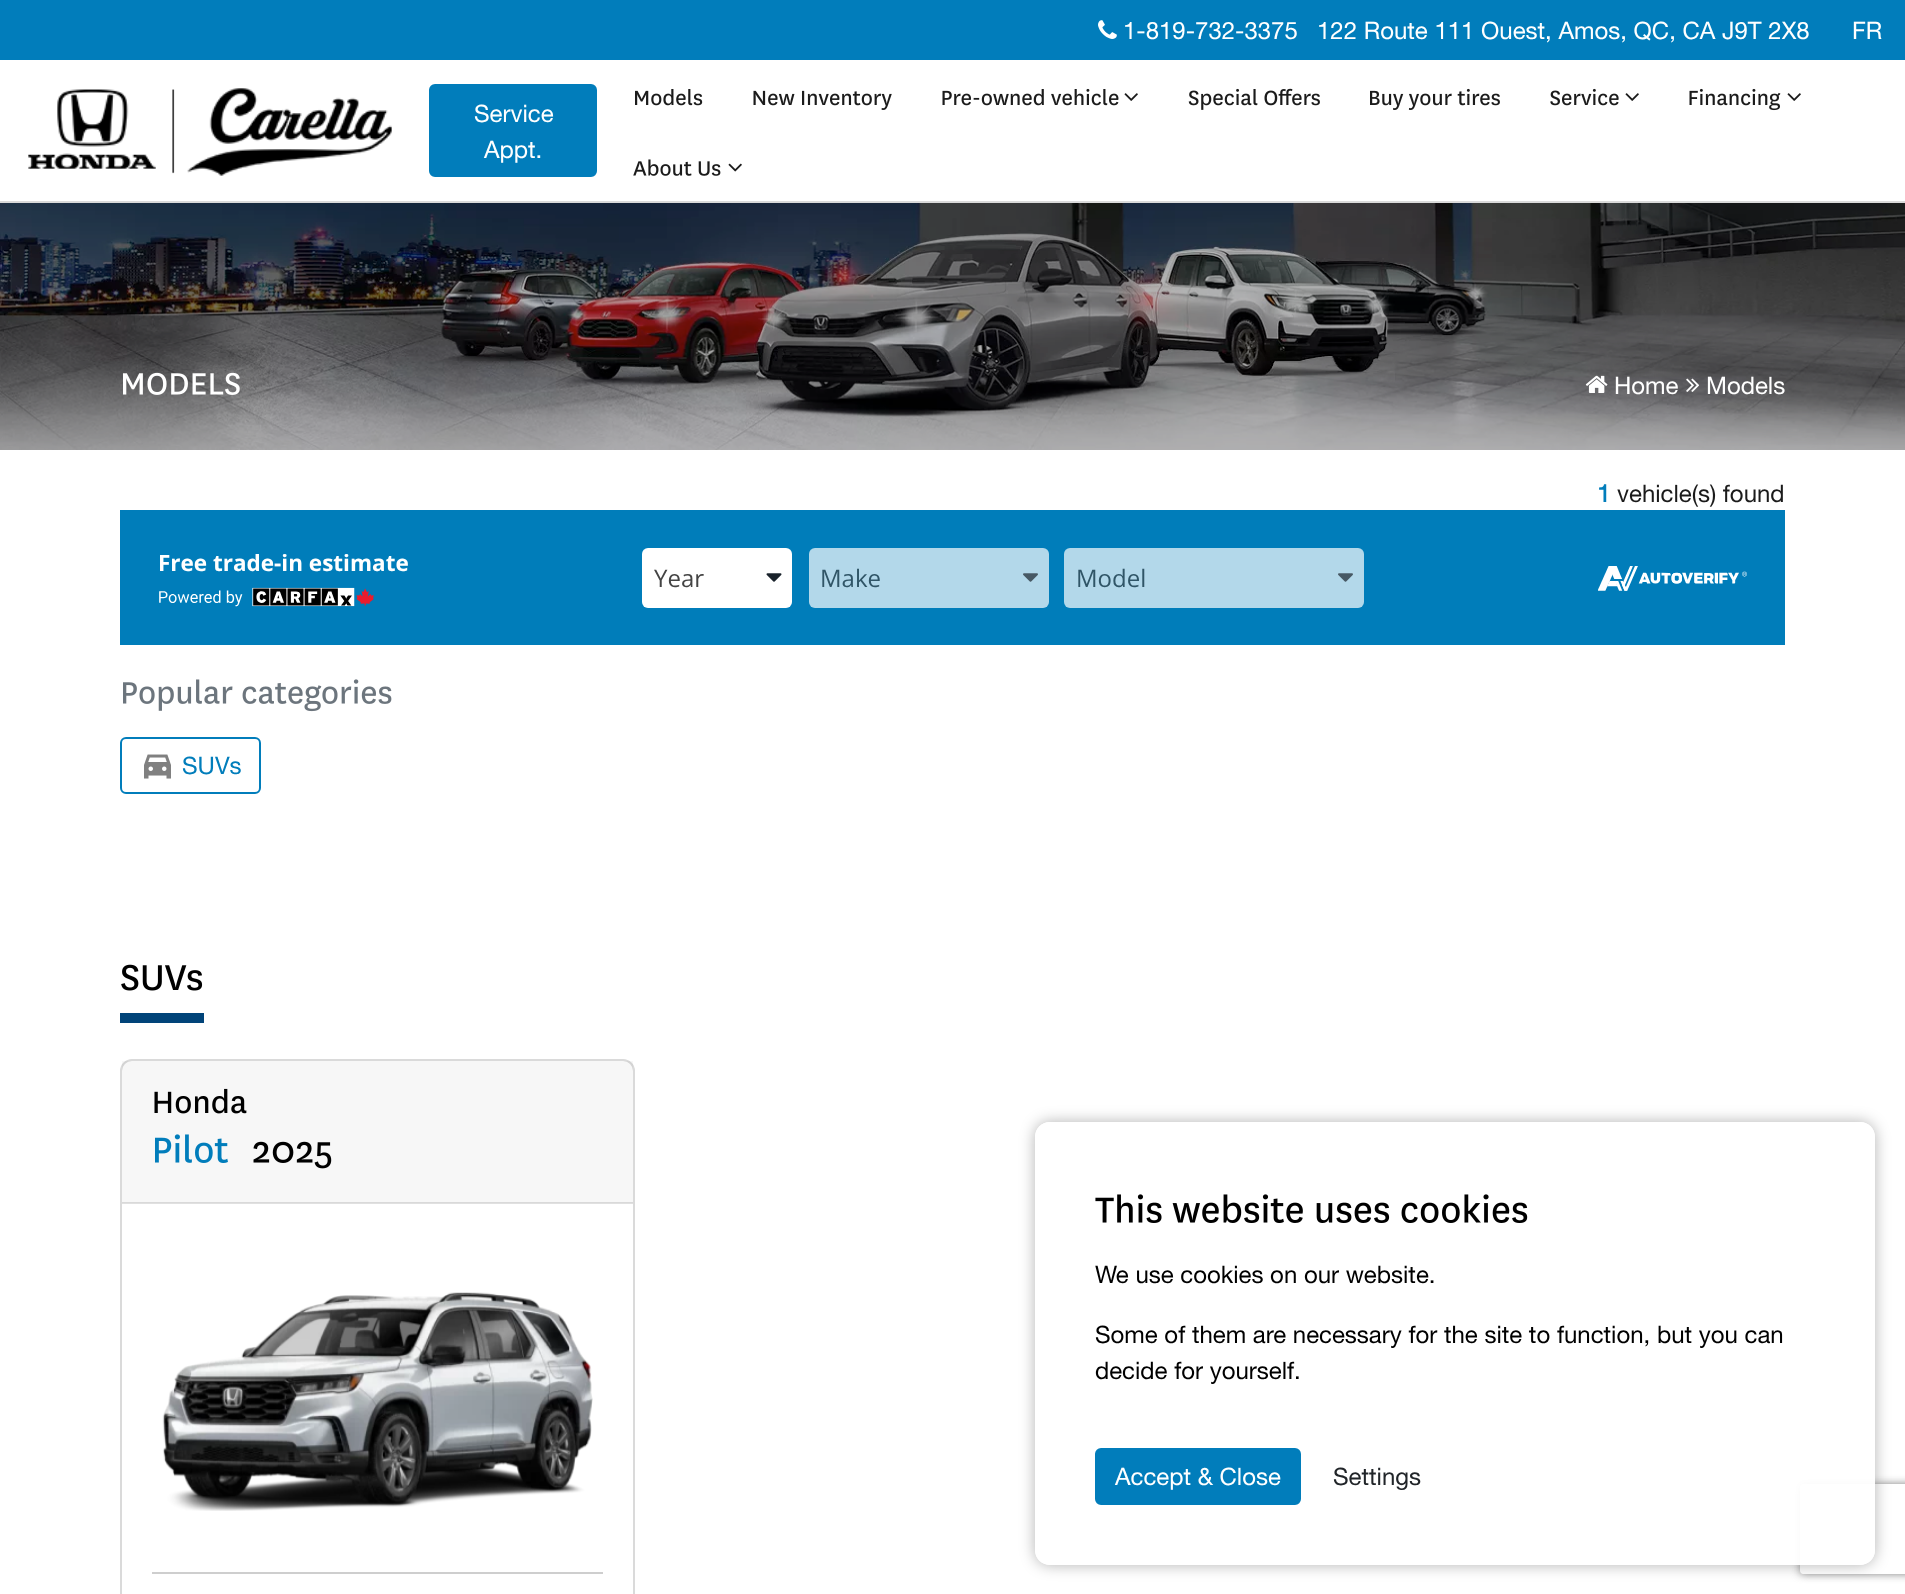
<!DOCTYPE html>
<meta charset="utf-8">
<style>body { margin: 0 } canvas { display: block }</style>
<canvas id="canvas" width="1905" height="1594"></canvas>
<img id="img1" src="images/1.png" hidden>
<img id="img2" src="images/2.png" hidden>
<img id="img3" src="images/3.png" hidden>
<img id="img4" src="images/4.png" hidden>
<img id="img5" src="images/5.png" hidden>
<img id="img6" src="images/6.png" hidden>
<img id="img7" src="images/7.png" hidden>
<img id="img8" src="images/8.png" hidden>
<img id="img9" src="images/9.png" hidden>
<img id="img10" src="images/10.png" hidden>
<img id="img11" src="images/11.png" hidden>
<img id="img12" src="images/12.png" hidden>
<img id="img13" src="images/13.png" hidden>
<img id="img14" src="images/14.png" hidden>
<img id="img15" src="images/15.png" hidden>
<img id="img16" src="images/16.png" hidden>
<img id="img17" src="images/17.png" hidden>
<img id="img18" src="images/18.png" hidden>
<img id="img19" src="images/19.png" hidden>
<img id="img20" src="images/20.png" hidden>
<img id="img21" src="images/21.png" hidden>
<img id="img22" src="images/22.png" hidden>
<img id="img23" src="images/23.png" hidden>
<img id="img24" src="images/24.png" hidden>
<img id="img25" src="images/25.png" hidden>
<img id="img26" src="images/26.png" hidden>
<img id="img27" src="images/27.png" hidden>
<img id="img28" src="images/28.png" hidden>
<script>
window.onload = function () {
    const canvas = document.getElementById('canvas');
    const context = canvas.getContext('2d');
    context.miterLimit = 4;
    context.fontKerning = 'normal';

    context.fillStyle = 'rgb(255, 255, 255)';
    context.fillRect(0, 0, 1905, 1594);
    context.fillStyle = 'rgb(1, 125, 187)';
    context.fillRect(0, 0, 1905, 60);
    context.drawImage(document.getElementById('img1'), 1098, 20, 19, 19);
    context.fillStyle = 'rgb(218, 218, 218)';
    context.fillRect(0, 201, 1905, 2);
    context.drawImage(document.getElementById('img2'), 28, 88, 364, 88);
    context.fillStyle = 'rgb(1, 125, 187)';
    context.beginPath();
    context.roundRect(430, 85, 166, 91, 5);
    context.fill();
    context.strokeStyle = 'rgb(1, 125, 187)';
    context.lineWidth = 2;
    context.stroke();
    context.drawImage(document.getElementById('img3'), 635, 89, 68, 17);
    context.drawImage(document.getElementById('img4'), 753, 90, 139, 20);
    context.drawImage(document.getElementById('img5'), 942, 88, 177, 18);
    context.drawImage(document.getElementById('img6'), 1124, 93, 14, 8);
    context.drawImage(document.getElementById('img7'), 1188, 88, 132, 22);
    context.drawImage(document.getElementById('img8'), 1370, 88, 130, 22);
    context.drawImage(document.getElementById('img9'), 1550, 88, 69, 18);
    context.drawImage(document.getElementById('img6'), 1625, 93, 14, 8);
    context.drawImage(document.getElementById('img10'), 1689, 88, 92, 23);
    context.drawImage(document.getElementById('img6'), 1787, 93, 14, 8);
    context.drawImage(document.getElementById('img11'), 633, 159, 88, 17);
    context.drawImage(document.getElementById('img12'), 728, 163, 14, 9);
    context.drawImage(document.getElementById('img13'), 0, 203, 1905, 247);
    context.drawImage(document.getElementById('img14'), 123, 372, 117, 23);
    context.drawImage(document.getElementById('img15'), 1585, 375, 23, 18);
    context.drawImage(document.getElementById('img16'), 1686, 378, 14, 14);
    context.fillStyle = 'rgb(0, 125, 186)';
    context.fillRect(120, 510, 1665, 135);
    context.drawImage(document.getElementById('img17'), 159, 587, 215, 20);
    context.fillStyle = 'rgb(255, 255, 255)';
    context.beginPath();
    context.roundRect(642, 548, 150, 60, 6);
    context.fill();
    context.drawImage(document.getElementById('img18'), 766, 573, 16, 9);
    context.fillStyle = 'rgb(179, 216, 234)';
    context.beginPath();
    context.roundRect(809, 548, 240, 60, 6);
    context.fill();
    context.drawImage(document.getElementById('img19'), 1023, 573, 15, 9);
    context.beginPath();
    context.roundRect(1064, 548, 300, 60, 6);
    context.fill();
    context.drawImage(document.getElementById('img19'), 1338, 573, 15, 9);
    context.drawImage(document.getElementById('img20'), 1598, 566, 149, 25);
    context.drawImage(document.getElementById('img21'), 123, 679, 269, 33);
    context.beginPath();
    context.roundRect(121, 738, 139, 55, 5);
    context.stroke();
    context.drawImage(document.getElementById('img22'), 144, 754, 27, 25);
    context.drawImage(document.getElementById('img23'), 121, 964, 82, 27);
    context.fillStyle = 'rgb(1, 68, 121)';
    context.fillRect(120, 1013, 84, 10);
    context.beginPath();
    context.roundRect(121, 1060, 513, 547, 11);
    context.strokeStyle = 'rgb(218, 218, 218)';
    context.stroke();
    context.fillStyle = 'rgba(0, 0, 0, 0.03)';
    context.fillRect(122, 1061, 511, 142);
    context.fillStyle = 'rgba(0, 0, 0, 0.12)';
    context.fillRect(122, 1202, 511, 2);
    context.drawImage(document.getElementById('img24'), 154, 1088, 93, 26);
    context.drawImage(document.getElementById('img25'), 155, 1134, 73, 29);
    context.drawImage(document.getElementById('img26'), 253, 1141, 79, 28);
    context.drawImage(document.getElementById('img27'), 162, 1292, 431, 219);
    context.fillStyle = 'rgb(206, 206, 206)';
    context.fillRect(152, 1572, 451, 2);
    context.save();
    context.beginPath();
    context.moveTo(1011, 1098);
    context.lineTo(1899, 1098);
    context.lineTo(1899, 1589);
    context.lineTo(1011, 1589);
    context.closePath();
    context.moveTo(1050, 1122);
    context.lineTo(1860, 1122);
    context.bezierCurveTo(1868.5, 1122, 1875, 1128.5, 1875, 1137);
    context.lineTo(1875, 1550);
    context.bezierCurveTo(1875, 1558.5, 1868.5, 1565, 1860, 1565);
    context.lineTo(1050, 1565);
    context.bezierCurveTo(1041.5, 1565, 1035, 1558.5, 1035, 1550);
    context.lineTo(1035, 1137);
    context.bezierCurveTo(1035, 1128.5, 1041.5, 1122, 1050, 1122);
    context.closePath();
    context.clip('evenodd');
    context.fillStyle = 'rgba(0, 0, 0, 0.3)';
    context.filter = 'blur(7.5px)';
    context.beginPath();
    context.roundRect(1035, 1122, 840, 443, 15);
    context.fill();
    context.filter = 'none';
    context.restore();
    context.save();
    context.beginPath();
    context.moveTo(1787, 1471);
    context.lineTo(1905, 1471);
    context.lineTo(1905, 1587);
    context.lineTo(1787, 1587);
    context.closePath();
    context.moveTo(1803, 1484);
    context.lineTo(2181, 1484);
    context.bezierCurveTo(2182.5, 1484, 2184, 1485.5, 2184, 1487);
    context.lineTo(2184, 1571);
    context.bezierCurveTo(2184, 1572.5, 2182.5, 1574, 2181, 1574);
    context.lineTo(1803, 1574);
    context.bezierCurveTo(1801.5, 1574, 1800, 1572.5, 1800, 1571);
    context.lineTo(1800, 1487);
    context.bezierCurveTo(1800, 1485.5, 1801.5, 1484, 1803, 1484);
    context.closePath();
    context.clip('evenodd');
    context.fillStyle = 'rgb(128, 128, 128)';
    context.filter = 'blur(4px)';
    context.beginPath();
    context.roundRect(1800, 1484, 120, 90, 3);
    context.fill();
    context.filter = 'none';
    context.restore();
    context.fillStyle = 'rgba(255, 255, 255, 0.95)';
    context.beginPath();
    context.roundRect(1035, 1122, 840, 443, 15);
    context.fill();
    context.drawImage(document.getElementById('img28'), 1095, 1194, 433, 29);
    context.fillStyle = 'rgb(1, 125, 187)';
    context.beginPath();
    context.roundRect(1096, 1449, 204, 55, 5);
    context.fill();
    context.strokeStyle = 'rgb(1, 125, 187)';
    context.stroke();
    context.font = '24px Helvetica Neue';
    context.fillStyle = 'rgb(255, 255, 255)';
    context.fillText('1-819-732-3375', 1123, 39);
    context.fillText('122 Route 111 Ouest, Amos, QC, CA J9T 2X8', 1317, 39);
    context.fillText('FR', 1852, 39);
    context.fillText('Service', 474, 122);
    context.fillText('Appt.', 484, 158);
    context.fillText('Home', 1614, 394);
    context.fillText('Models', 1706, 394);
    context.font = 'bold 24px Helvetica Neue';
    context.fillStyle = 'rgb(1, 125, 187)';
    context.fillText('1', 1597, 502);
    context.font = '24px Helvetica Neue';
    context.fillStyle = 'rgb(27, 27, 27)';
    context.fillText('vehicle(s) found', 1617, 502);
    context.font = 'bold 22.5px Open Sans';
    context.fillStyle = 'rgb(255, 255, 255)';
    context.fillText('Free trade-in estimate', 158, 571);
    context.font = '24px Open Sans';
    context.fillStyle = 'rgb(68, 68, 68)';
    context.fillText('Year', 654, 587);
    context.fillStyle = 'rgb(48, 85, 103)';
    context.fillText('Make', 820, 587);
    context.fillText('Model', 1076, 587);
    context.font = '24px Helvetica Neue';
    context.fillStyle = 'rgb(1, 125, 187)';
    context.fillText('SUVs', 182, 774);
    context.fillStyle = 'rgb(0, 0, 0)';
    context.fillText('We use cookies on our website.', 1095, 1283);
    context.fillText('Some of them are necessary for the site to function, but you can', 1095, 1343);
    context.fillText('decide for yourself.', 1095, 1379);
    context.fillStyle = 'rgb(255, 255, 255)';
    context.fillText('Accept & Close', 1115, 1485);
    context.fillStyle = 'rgb(33, 37, 41)';
    context.fillText('Settings', 1333, 1485);
};
</script>
